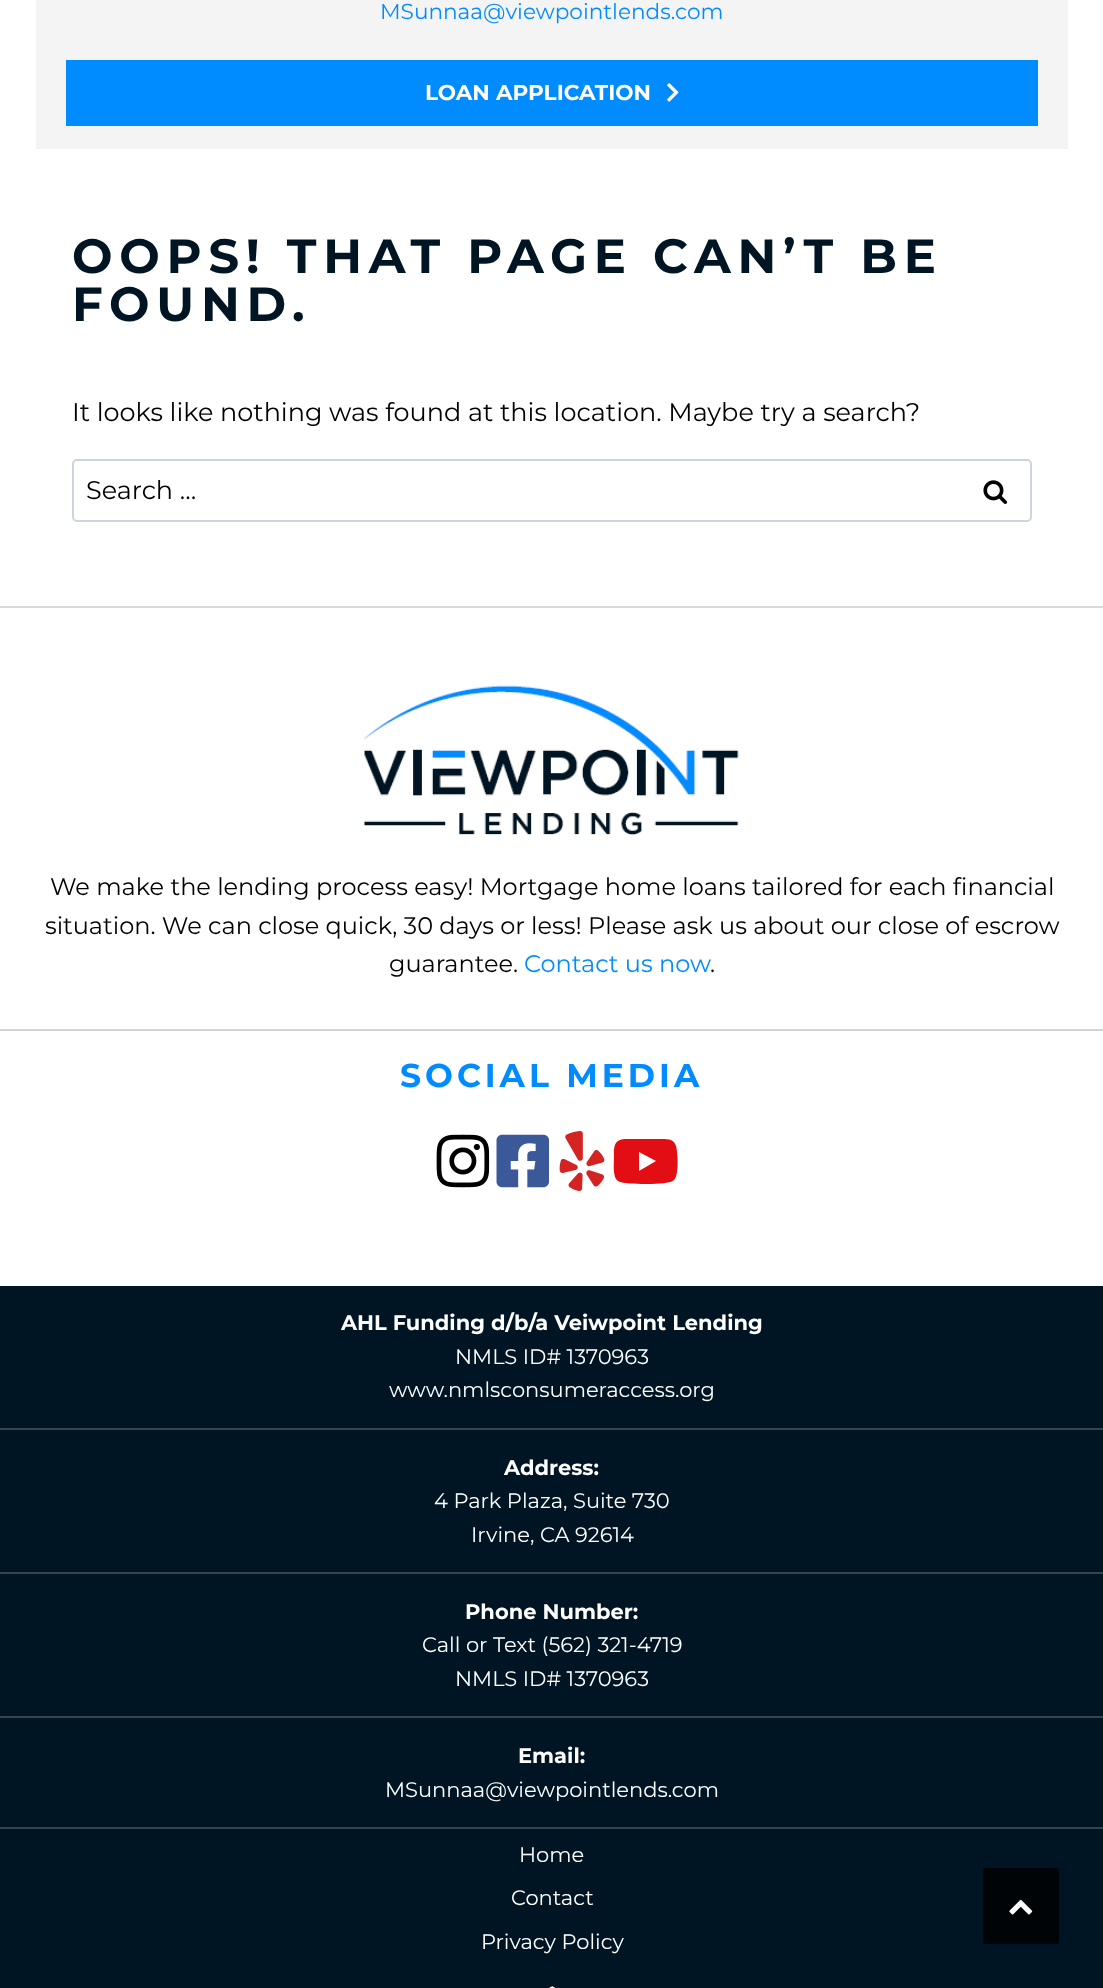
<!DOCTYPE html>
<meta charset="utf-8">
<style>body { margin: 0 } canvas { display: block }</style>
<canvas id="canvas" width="1103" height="1988"></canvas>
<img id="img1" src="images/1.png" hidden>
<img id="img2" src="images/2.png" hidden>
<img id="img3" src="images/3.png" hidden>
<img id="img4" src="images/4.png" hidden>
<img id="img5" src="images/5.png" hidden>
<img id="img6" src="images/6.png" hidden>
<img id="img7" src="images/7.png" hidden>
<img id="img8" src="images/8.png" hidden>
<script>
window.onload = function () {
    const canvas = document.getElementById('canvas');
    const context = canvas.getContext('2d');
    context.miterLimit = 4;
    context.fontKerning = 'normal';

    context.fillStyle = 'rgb(255, 255, 255)';
    context.fillRect(0, 0, 1103, 1988);
    context.fillStyle = 'rgb(244, 244, 244)';
    context.fillRect(36, 0, 1032, 149);
    context.fillStyle = 'rgb(0, 139, 255)';
    context.fillRect(66, 60, 972, 66);
    context.drawImage(document.getElementById('img1'), 667, 83, 12, 19);
    context.beginPath();
    context.roundRect(73, 460, 958, 61, 4);
    context.strokeStyle = 'rgb(203, 213, 224)';
    context.lineWidth = 2;
    context.stroke();
    context.drawImage(document.getElementById('img2'), 983, 480, 25, 24);
    context.fillStyle = 'rgb(219, 219, 219)';
    context.fillRect(0, 606, 1103, 2);
    context.fillStyle = 'rgb(211, 211, 211)';
    context.fillRect(0, 1029, 1103, 2);
    context.drawImage(document.getElementById('img3'), 364, 685, 375, 151);
    context.drawImage(document.getElementById('img4'), 436, 1134, 54, 54);
    context.drawImage(document.getElementById('img5'), 496, 1134, 53, 54);
    context.drawImage(document.getElementById('img6'), 559, 1131, 46, 60);
    context.fillStyle = 'rgb(227, 14, 19)';
    context.beginPath();
    context.moveTo(676, 1146);
    context.bezierCurveTo(678, 1153, 679, 1176, 674, 1180);
    context.bezierCurveTo(669, 1186, 624, 1184, 620, 1182);
    context.bezierCurveTo(617, 1181, 616, 1179, 615, 1177);
    context.bezierCurveTo(613, 1170, 614, 1162, 614, 1156);
    context.bezierCurveTo(614, 1146, 614, 1140, 625, 1139);
    context.lineTo(639, 1139);
    context.lineTo(659, 1139);
    context.bezierCurveTo(665, 1139, 674, 1138, 676, 1146);
    context.closePath();
    context.moveTo(639, 1171);
    context.lineTo(656, 1161);
    context.lineTo(639, 1152);
    context.closePath();
    context.fill();
    context.fillStyle = 'rgb(0, 21, 35)';
    context.fillRect(0, 1286, 1103, 702);
    context.fillStyle = 'rgb(51, 68, 79)';
    context.fillRect(0, 1428, 1103, 2);
    context.fillRect(0, 1572, 1103, 2);
    context.fillRect(0, 1716, 1103, 2);
    context.fillRect(0, 1827, 1103, 2);
    context.drawImage(document.getElementById('img7'), 549, 1986, 7, 2);
    context.fillStyle = 'rgb(0, 4, 7)';
    context.beginPath();
    context.roundRect(983, 1868, 76, 76, 3);
    context.fill();
    context.drawImage(document.getElementById('img8'), 1009, 1899, 24, 16);
    context.font = '21.6px Montserrat';
    context.fillStyle = 'rgb(0, 139, 255)';
    context.fillText('MSunnaa@viewpointlends.com', 380, 19);
    context.font = 'bold 21.6px Montserrat';
    context.fillStyle = 'rgb(255, 255, 255)';
    context.fillText('LOAN APPLICATION', 425, 100);
    context.letterSpacing = '6.75px';
    context.font = 'bold 48px Montserrat';
    context.fillStyle = 'rgb(0, 21, 35)';
    context.fillText('OOPS! THAT PAGE CAN’T BE', 72, 273);
    context.fillText('FOUND.', 72, 321);
    context.letterSpacing = '0px';
    context.font = '25.5px Montserrat';
    context.fillStyle = 'rgb(0, 0, 0)';
    context.fillText('It looks like nothing was found at this location. Maybe try a search?', 72, 421);
    context.fillText('Search …', 86, 499);
    context.font = '24px Montserrat';
    context.fillText('We make the lending process easy! Mortgage home loans tailored for each financial', 50, 895);
    context.fillText('situation. We can close quick, 30 days or less! Please ask us about our close of escrow', 45, 934);
    context.fillText('guarantee.', 389, 972);
    context.fillStyle = 'rgb(0, 139, 255)';
    context.fillText('Contact us now', 524, 972);
    context.fillStyle = 'rgb(0, 0, 0)';
    context.fillText('.', 710, 972);
    context.letterSpacing = '4px';
    context.font = 'bold 33px Montserrat';
    context.fillStyle = 'rgb(0, 139, 255)';
    context.fillText('SOCIAL MEDIA', 400, 1087);
    context.letterSpacing = '0px';
    context.font = 'bold 21px Montserrat';
    context.fillStyle = 'rgb(255, 255, 255)';
    context.fillText('AHL Funding d/b/a Veiwpoint Lending', 341, 1330);
    context.font = '21px Montserrat';
    context.fillText('NMLS ID# 1370963', 455, 1364);
    context.fillText('www.nmlsconsumeraccess.org', 389, 1397);
    context.font = 'bold 21px Montserrat';
    context.fillText('Address:', 504, 1475);
    context.font = '21px Montserrat';
    context.fillText('4 Park Plaza, Suite 730', 434, 1508);
    context.fillText('Irvine, CA 92614', 471, 1542);
    context.font = 'bold 21px Montserrat';
    context.fillText('Phone Number:', 465, 1619);
    context.font = '21px Montserrat';
    context.fillText('Call or Text (562) 321-4719', 422, 1652);
    context.fillText('NMLS ID# 1370963', 455, 1686);
    context.font = 'bold 21px Montserrat';
    context.fillText('Email:', 518, 1763);
    context.font = '21px Montserrat';
    context.fillText('MSunnaa@viewpointlends.com', 385, 1797);
    context.fillText('Home', 519, 1862);
    context.fillText('Contact', 511, 1905);
    context.fillText('Privacy Policy', 481, 1949);
};
</script>
